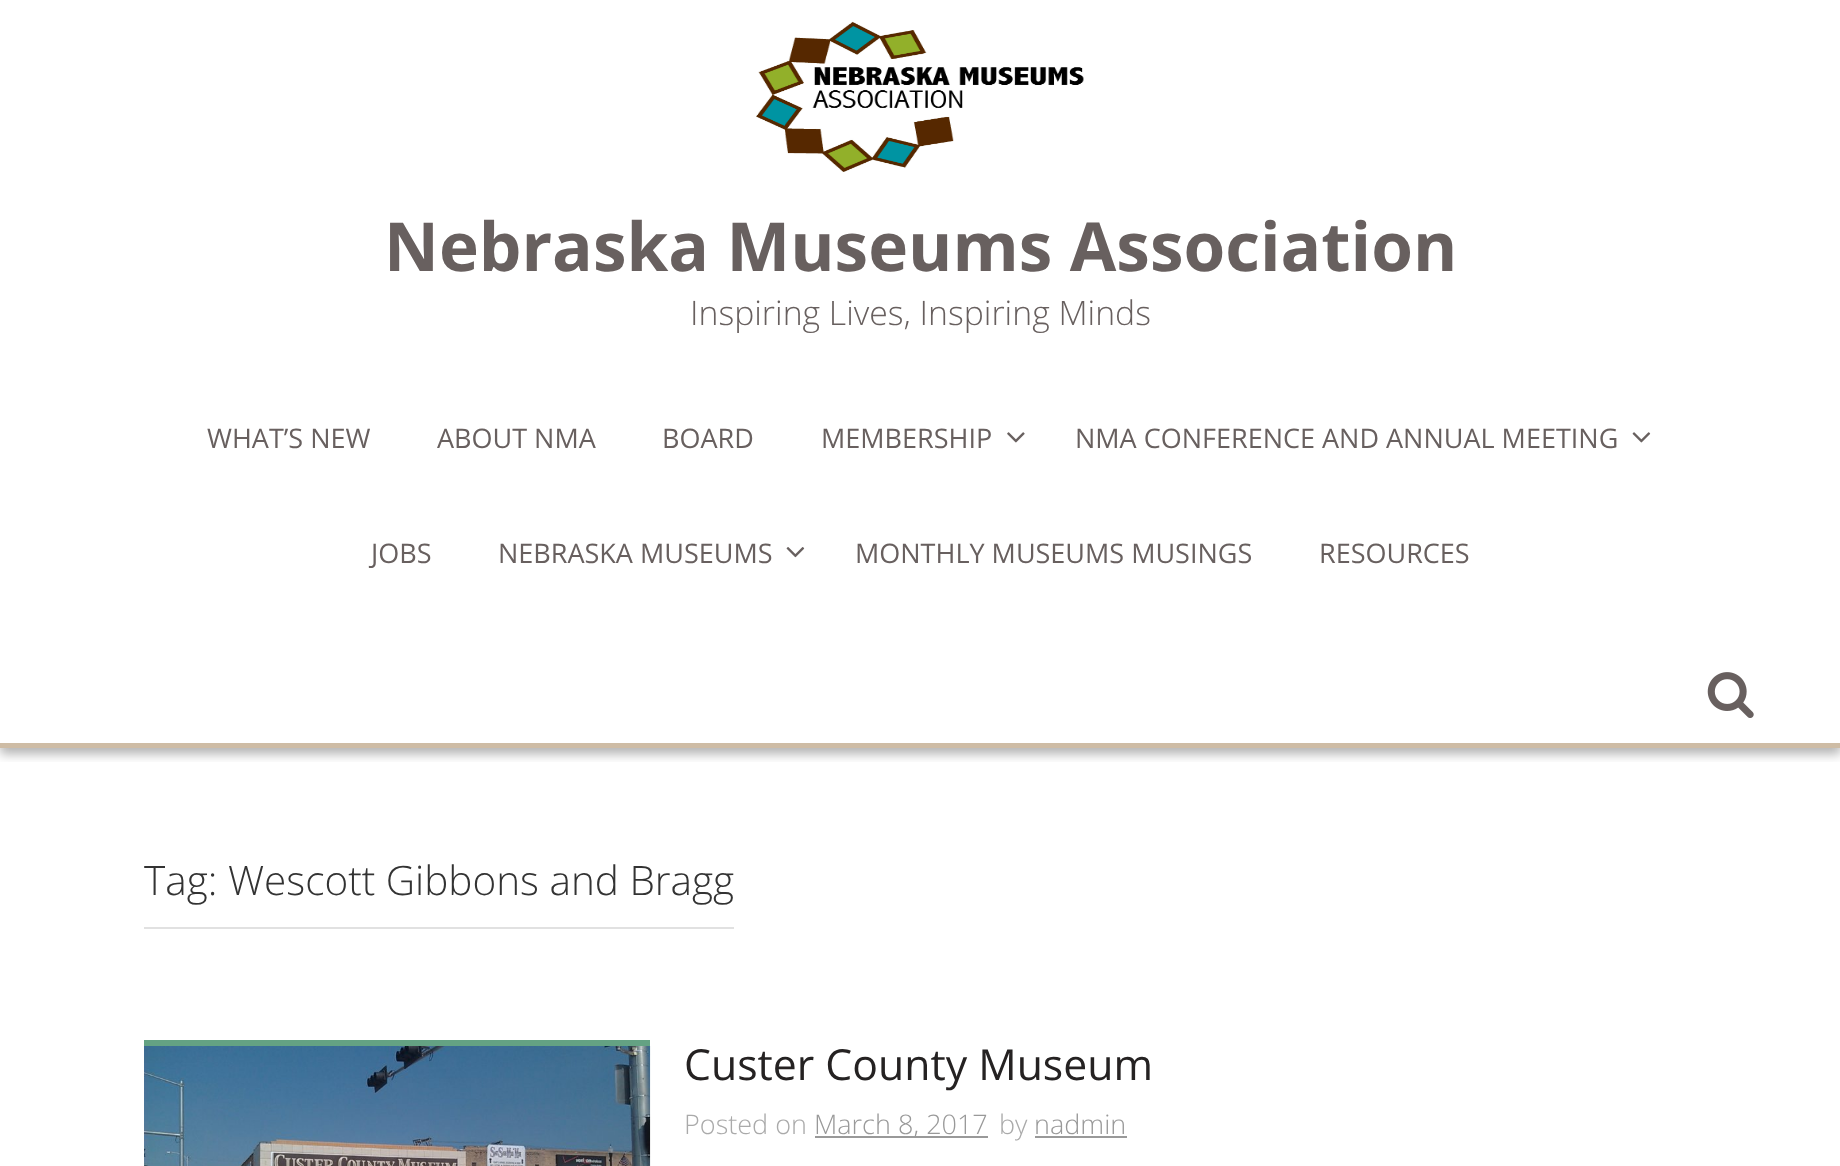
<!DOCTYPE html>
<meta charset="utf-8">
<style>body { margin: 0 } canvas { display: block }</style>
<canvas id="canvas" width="1840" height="1166"></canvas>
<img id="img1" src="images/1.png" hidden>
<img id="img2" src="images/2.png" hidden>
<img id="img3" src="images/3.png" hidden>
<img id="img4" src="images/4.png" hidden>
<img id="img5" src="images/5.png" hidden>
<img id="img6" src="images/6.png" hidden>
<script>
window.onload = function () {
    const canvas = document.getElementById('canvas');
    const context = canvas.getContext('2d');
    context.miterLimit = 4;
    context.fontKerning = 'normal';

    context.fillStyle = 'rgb(255, 255, 255)';
    context.fillRect(0, 0, 1840, 1166);
    context.save();
    context.beginPath();
    context.rect(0, 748, 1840, 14);
    context.clip();
    context.fillStyle = 'rgba(0, 0, 0, 0.3)';
    context.filter = 'blur(5.5px)';
    context.beginPath();
    context.rect(0, -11, 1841, 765);
    context.fill();
    context.filter = 'none';
    context.restore();
    context.fillStyle = 'rgb(206, 188, 165)';
    context.fillRect(0, 743, 1840, 5);
    context.drawImage(document.getElementById('img1'), 756, 21, 328, 151);
    context.drawImage(document.getElementById('img2'), 1007, 432, 18, 11);
    context.drawImage(document.getElementById('img3'), 1632, 432, 19, 11);
    context.drawImage(document.getElementById('img4'), 786, 547, 19, 11);
    context.drawImage(document.getElementById('img5'), 1707, 672, 47, 46);
    context.fillStyle = 'rgb(225, 225, 225)';
    context.fillRect(144, 927, 590, 2);
    context.fillStyle = 'rgb(100, 162, 131)';
    context.fillRect(144, 1040, 506, 6);
    context.drawImage(document.getElementById('img6'), 144, 1046, 507, 120);
    context.fillStyle = 'rgb(153, 153, 153)';
    context.fillRect(815, 1136, 173, 2);
    context.fillRect(1035, 1136, 92, 2);
    context.font = 'bold 67.5px Open Sans';
    context.fillStyle = 'rgb(104, 96, 95)';
    context.fillText('Nebraska Museums Association', 384, 271);
    context.font = '300 33.75px Open Sans';
    context.fillText('Inspiring Lives, Inspiring Minds', 690, 325);
    context.font = '27px Open Sans';
    context.fillText('WHAT’S NEW', 207, 448);
    context.fillText('ABOUT NMA', 437, 448);
    context.fillText('BOARD', 662, 448);
    context.fillText('MEMBERSHIP', 821, 448);
    context.fillText('NMA CONFERENCE AND ANNUAL MEETING', 1075, 448);
    context.fillText('JOBS', 371, 563);
    context.fillText('NEBRASKA MUSEUMS', 498, 563);
    context.fillText('MONTHLY MUSEUMS MUSINGS', 855, 563);
    context.fillText('RESOURCES', 1319, 563);
    context.font = '300 40.5px Open Sans';
    context.fillStyle = 'rgb(51, 51, 51)';
    context.fillText('Tag: Wescott Gibbons and Bragg', 144, 895);
    context.font = '42.75px Open Sans';
    context.fillStyle = 'rgb(37, 34, 34)';
    context.fillText('Custer County Museum', 684, 1080);
    context.font = '300 27px Open Sans';
    context.fillStyle = 'rgb(170, 170, 170)';
    context.fillText('Posted on', 684, 1134);
    context.fillStyle = 'rgb(153, 153, 153)';
    context.fillText('March 8, 2017', 814, 1134);
    context.fillStyle = 'rgb(170, 170, 170)';
    context.fillText('by', 999, 1134);
    context.fillStyle = 'rgb(153, 153, 153)';
    context.fillText('nadmin', 1034, 1134);
};
</script>
